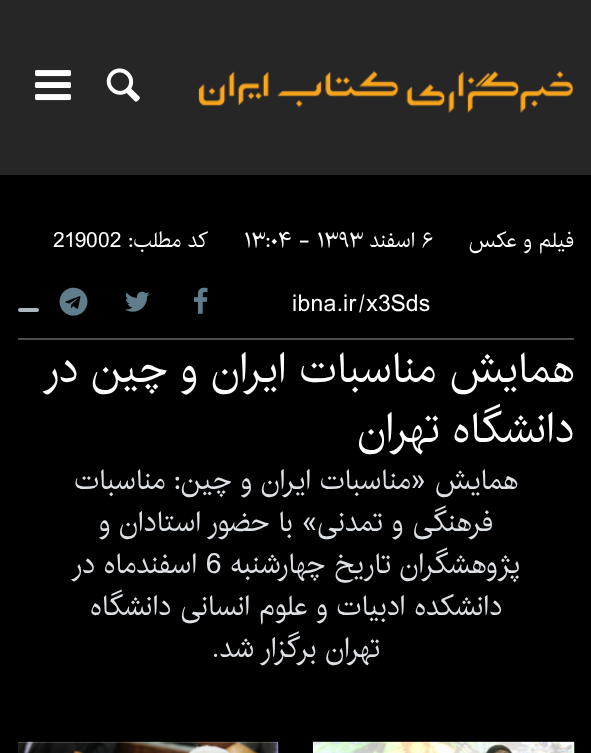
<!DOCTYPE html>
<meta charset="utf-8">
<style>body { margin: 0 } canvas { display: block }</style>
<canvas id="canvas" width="591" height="753"></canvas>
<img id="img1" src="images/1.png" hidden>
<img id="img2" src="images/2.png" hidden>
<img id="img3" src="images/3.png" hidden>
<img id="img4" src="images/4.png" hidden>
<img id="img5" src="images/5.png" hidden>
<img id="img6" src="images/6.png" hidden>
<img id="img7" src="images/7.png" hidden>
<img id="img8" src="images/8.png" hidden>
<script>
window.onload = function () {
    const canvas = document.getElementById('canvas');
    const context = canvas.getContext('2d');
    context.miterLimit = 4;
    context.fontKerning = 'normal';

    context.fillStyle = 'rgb(0, 0, 0)';
    context.fillRect(0, 0, 591, 753);
    context.fillStyle = 'rgb(38, 38, 38)';
    context.fillRect(0, 0, 591, 175);
    context.drawImage(document.getElementById('img1'), 198, 70, 375, 44);
    context.drawImage(document.getElementById('img2'), 106, 68, 34, 34);
    context.drawImage(document.getElementById('img3'), 35, 70, 36, 31);
    context.drawImage(document.getElementById('img4'), 194, 287, 14, 27);
    context.drawImage(document.getElementById('img5'), 125, 291, 25, 21);
    context.drawImage(document.getElementById('img6'), 59, 287, 29, 29);
    context.fillStyle = 'rgb(173, 181, 189)';
    context.beginPath();
    context.roundRect(18, 308, 21, 4, 2);
    context.fill();
    context.fillStyle = 'rgb(77, 77, 77)';
    context.fillRect(18, 338, 556, 2);
    context.fillStyle = 'rgb(255, 255, 255)';
    context.fillRect(313, 742, 261, 11);
    context.drawImage(document.getElementById('img7'), 312, 741, 263, 12);
    context.fillRect(18, 742, 260, 11);
    context.drawImage(document.getElementById('img8'), 18, 741, 261, 12);
    context.direction = 'rtl';
    context.font = '21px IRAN';
    context.fillText('فیلم و عکس', 574, 247);
    context.direction = 'ltr';
    context.fillText('۶', 422, 247);
    context.direction = 'rtl';
    context.fillText('اسفند', 415, 247);
    context.direction = 'ltr';
    context.fillText('۱۳:۰۴ - ۱۳۹۳', 244, 247);
    context.direction = 'rtl';
    context.fillText('کد مطلب:', 208, 247);
    context.direction = 'ltr';
    context.fillText('219002', 53, 247);
    context.font = '23px IRAN';
    context.fillText('ibna.ir/x3Sds', 292, 311);
    context.direction = 'rtl';
    context.font = '42px IRAN';
    context.fillText('همایش مناسبات ایران و چین در', 574, 382);
    context.fillText('دانشگاه تهران', 574, 442);
    context.font = '28px IRAN';
    context.fillStyle = 'rgb(222, 226, 230)';
    context.fillText('همایش «مناسبات ایران و چین: مناسبات', 518, 489);
    context.fillText('فرهنگی و تمدنی» با حضور استادان و', 493, 531);
    context.fillText('پژوهشگران تاریخ چهارشنبه', 520, 573);
    context.direction = 'ltr';
    context.fillText('6', 206, 573);
    context.direction = 'rtl';
    context.fillText('اسفندماه در', 197, 573);
    context.fillText('دانشکده ادبیات و علوم انسانی دانشگاه', 502, 615);
    context.fillText('تهران برگزار شد.', 380, 657);
};
</script>
